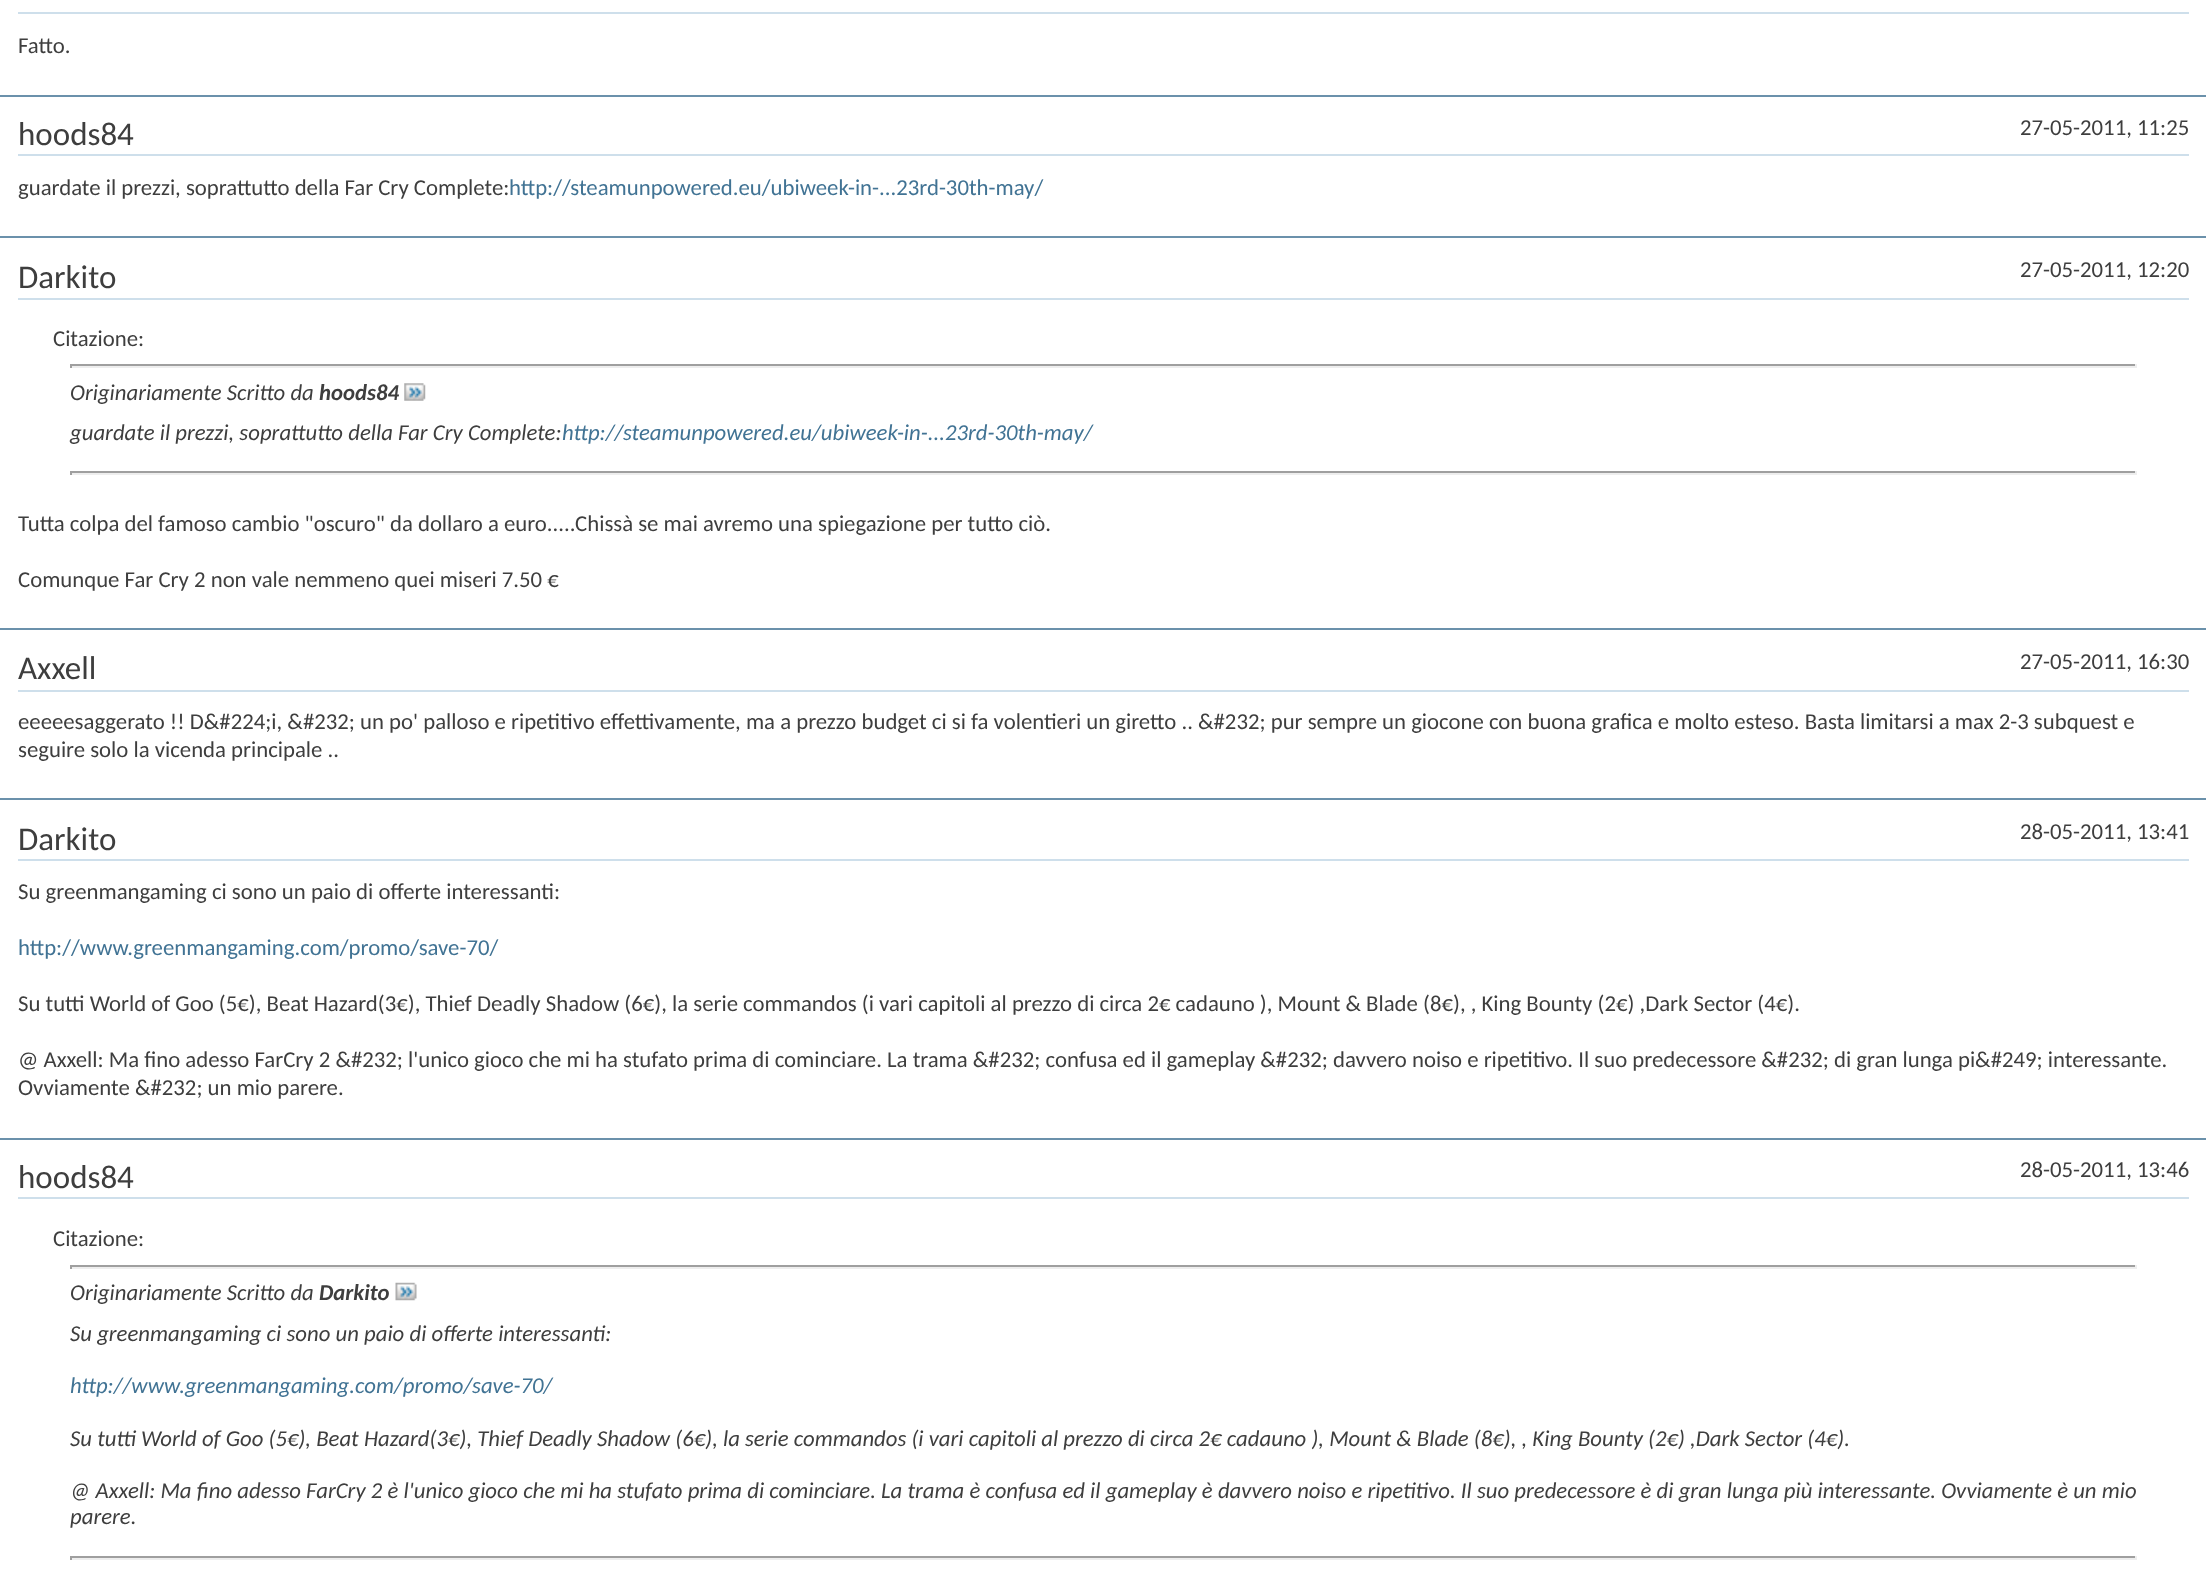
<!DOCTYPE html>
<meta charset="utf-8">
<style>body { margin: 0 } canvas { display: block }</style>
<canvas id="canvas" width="2206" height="1579"></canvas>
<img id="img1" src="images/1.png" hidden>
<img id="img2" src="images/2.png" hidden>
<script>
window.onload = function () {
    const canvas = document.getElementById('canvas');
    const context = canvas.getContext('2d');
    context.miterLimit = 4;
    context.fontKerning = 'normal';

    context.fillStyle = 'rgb(255, 255, 255)';
    context.fillRect(0, 0, 2206, 1579);
    context.fillStyle = 'rgb(206, 223, 235)';
    context.fillRect(18, 12, 2171, 2);
    context.fillStyle = 'rgb(107, 145, 171)';
    context.fillRect(0, 95, 2206, 2);
    context.fillStyle = 'rgb(206, 223, 235)';
    context.fillRect(18, 154, 2171, 2);
    context.fillStyle = 'rgb(107, 145, 171)';
    context.fillRect(0, 236, 2206, 2);
    context.fillStyle = 'rgb(206, 223, 235)';
    context.fillRect(18, 298, 2171, 2);
    context.fillStyle = 'rgb(159, 159, 159)';
    context.fillRect(70, 364, 2067, 2);
    context.fillStyle = 'rgb(238, 238, 238)';
    context.fillRect(2135, 364, 2, 4);
    context.fillRect(70, 366, 2067, 2);
    context.fillStyle = 'rgb(159, 159, 159)';
    context.fillRect(70, 364, 2, 4);
    context.drawImage(document.getElementById('img1'), 404, 383, 22, 18);
    context.fillRect(70, 471, 2067, 2);
    context.fillStyle = 'rgb(238, 238, 238)';
    context.fillRect(2135, 471, 2, 4);
    context.fillRect(70, 473, 2067, 2);
    context.fillStyle = 'rgb(159, 159, 159)';
    context.fillRect(70, 471, 2, 4);
    context.fillStyle = 'rgb(107, 145, 171)';
    context.fillRect(0, 628, 2206, 2);
    context.fillStyle = 'rgb(206, 223, 235)';
    context.fillRect(18, 690, 2171, 2);
    context.fillStyle = 'rgb(107, 145, 171)';
    context.fillRect(0, 798, 2206, 2);
    context.fillStyle = 'rgb(206, 223, 235)';
    context.fillRect(18, 859, 2171, 2);
    context.fillStyle = 'rgb(107, 145, 171)';
    context.fillRect(0, 1138, 2206, 2);
    context.fillStyle = 'rgb(206, 223, 235)';
    context.fillRect(18, 1197, 2171, 2);
    context.fillStyle = 'rgb(159, 159, 159)';
    context.fillRect(70, 1265, 2067, 2);
    context.fillStyle = 'rgb(238, 238, 238)';
    context.fillRect(2135, 1265, 2, 4);
    context.fillRect(70, 1267, 2067, 2);
    context.fillStyle = 'rgb(159, 159, 159)';
    context.fillRect(70, 1265, 2, 4);
    context.drawImage(document.getElementById('img2'), 395, 1282, 22, 19);
    context.fillRect(70, 1556, 2067, 2);
    context.fillStyle = 'rgb(238, 238, 238)';
    context.fillRect(2135, 1556, 2, 4);
    context.fillRect(70, 1558, 2067, 2);
    context.fillStyle = 'rgb(159, 159, 159)';
    context.fillRect(70, 1556, 2, 4);
    context.font = '22.75px Carlito';
    context.fillStyle = 'rgb(62, 62, 62)';
    context.fillText('Fatto.', 18, 53);
    context.font = '33px Carlito';
    context.fillText('hoods84', 18, 145);
    context.font = '22.75px Carlito';
    context.fillText('27-05-2011, 11:25', 2020, 135);
    context.fillText('guardate il prezzi, soprattutto della Far Cry Complete:', 18, 195);
    context.fillStyle = 'rgb(65, 115, 148)';
    context.fillText('http://steamunpowered.eu/ubiweek-in-...23rd-30th-may/', 509, 195);
    context.font = '33px Carlito';
    context.fillStyle = 'rgb(62, 62, 62)';
    context.fillText('Darkito', 18, 288);
    context.font = '22.75px Carlito';
    context.fillText('27-05-2011, 12:20', 2020, 277);
    context.fillText('Citazione:', 53, 346);
    context.font = 'italic 22.75px Carlito';
    context.fillText('Originariamente Scritto da', 70, 400);
    context.font = 'italic bold 22.75px Carlito';
    context.fillText('hoods84', 319, 400);
    context.font = 'italic 22.75px Carlito';
    context.fillText('guardate il prezzi, soprattutto della Far Cry Complete:', 70, 440);
    context.fillStyle = 'rgb(65, 115, 148)';
    context.fillText('http://steamunpowered.eu/ubiweek-in-...23rd-30th-may/', 562, 440);
    context.font = '22.75px Carlito';
    context.fillStyle = 'rgb(62, 62, 62)';
    context.fillText('Tutta colpa del famoso cambio "oscuro" da dollaro a euro.....Chissà se mai avremo una spiegazione per tutto ciò.', 18, 531);
    context.fillText('Comunque Far Cry 2 non vale nemmeno quei miseri 7.50 €', 18, 587);
    context.font = '33px Carlito';
    context.fillText('Axxell', 18, 679);
    context.font = '22.75px Carlito';
    context.fillText('27-05-2011, 16:30', 2020, 669);
    context.fillText('eeeeesaggerato !! D&#224;i, &#232; un po\' palloso e ripetitivo effettivamente, ma a prezzo budget ci si fa volentieri un giretto .. &#232; pur sempre un giocone con buona grafica e molto esteso. Basta limitarsi a max 2-3 subquest e', 18, 729);
    context.fillText('seguire solo la vicenda principale ..', 18, 757);
    context.font = '33px Carlito';
    context.fillText('Darkito', 18, 850);
    context.font = '22.75px Carlito';
    context.fillText('28-05-2011, 13:41', 2020, 839);
    context.fillText('Su greenmangaming ci sono un paio di offerte interessanti:', 18, 899);
    context.fillStyle = 'rgb(65, 115, 148)';
    context.fillText('http://www.greenmangaming.com/promo/save-70/', 18, 955);
    context.fillStyle = 'rgb(62, 62, 62)';
    context.fillText('Su tutti World of Goo (5€), Beat Hazard(3€), Thief Deadly Shadow (6€), la serie commandos (i vari capitoli al prezzo di circa 2€ cadauno ), Mount & Blade (8€), , King Bounty (2€) ,Dark Sector (4€).', 18, 1011);
    context.fillText('@ Axxell: Ma fino adesso FarCry 2 &#232; l\'unico gioco che mi ha stufato prima di cominciare. La trama &#232; confusa ed il gameplay &#232; davvero noiso e ripetitivo. Il suo predecessore &#232; di gran lunga pi&#249; interessante.', 18, 1067);
    context.fillText('Ovviamente &#232; un mio parere.', 18, 1095);
    context.font = '33px Carlito';
    context.fillText('hoods84', 18, 1188);
    context.font = '22.75px Carlito';
    context.fillText('28-05-2011, 13:46', 2020, 1177);
    context.fillText('Citazione:', 53, 1246);
    context.font = 'italic 22.75px Carlito';
    context.fillText('Originariamente Scritto da', 70, 1300);
    context.font = 'italic bold 22.75px Carlito';
    context.fillText('Darkito', 319, 1300);
    context.font = 'italic 22.75px Carlito';
    context.fillText('Su greenmangaming ci sono un paio di offerte interessanti:', 70, 1341);
    context.fillStyle = 'rgb(65, 115, 148)';
    context.fillText('http://www.greenmangaming.com/promo/save-70/', 70, 1393);
    context.fillStyle = 'rgb(62, 62, 62)';
    context.fillText('Su tutti World of Goo (5€), Beat Hazard(3€), Thief Deadly Shadow (6€), la serie commandos (i vari capitoli al prezzo di circa 2€ cadauno ), Mount & Blade (8€), , King Bounty (2€) ,Dark Sector (4€).', 70, 1446);
    context.fillText('@ Axxell: Ma fino adesso FarCry 2 è l\'unico gioco che mi ha stufato prima di cominciare. La trama è confusa ed il gameplay è davvero noiso e ripetitivo. Il suo predecessore è di gran lunga più interessante. Ovviamente è un mio', 70, 1498);
    context.fillText('parere.', 70, 1524);
};
</script>
